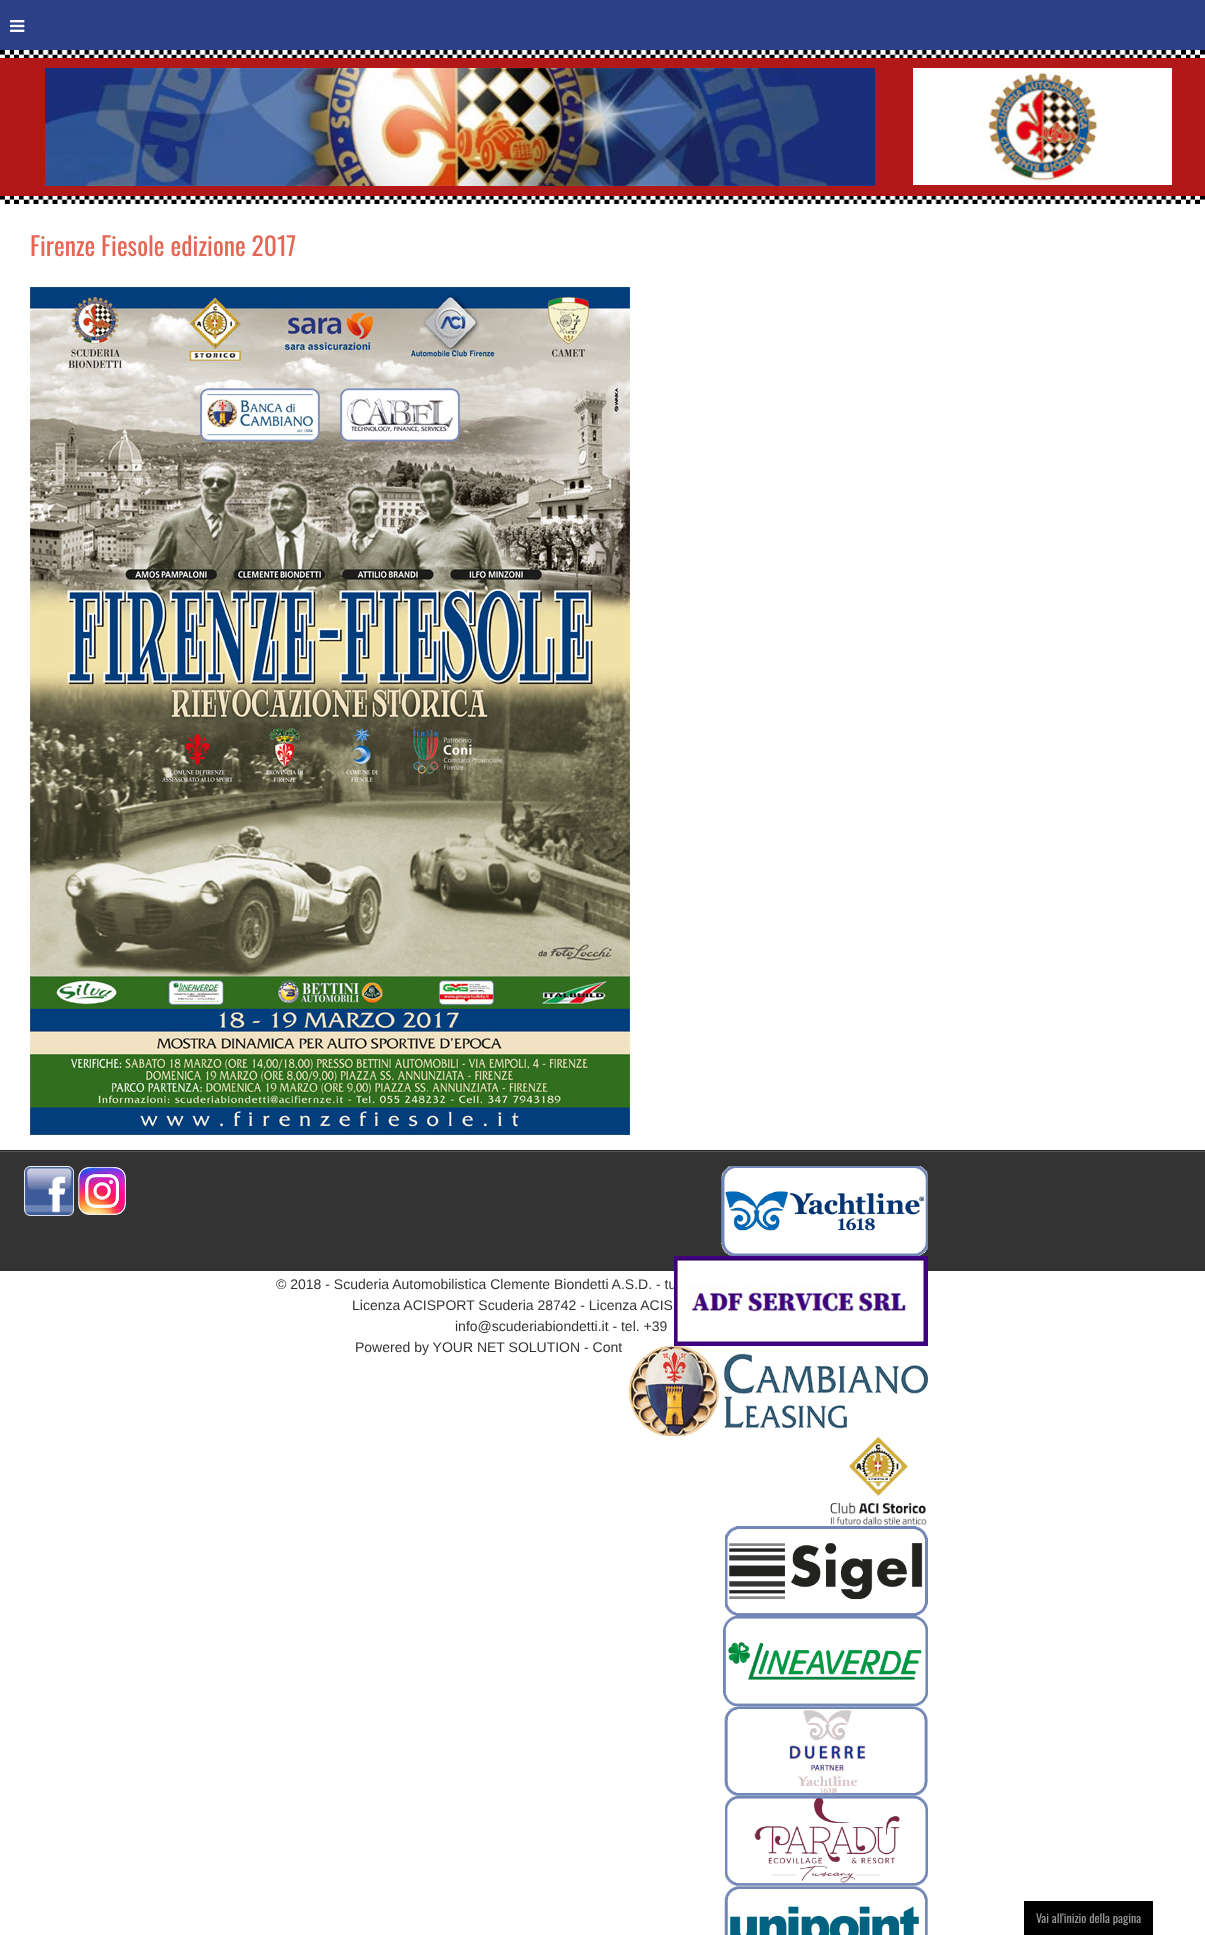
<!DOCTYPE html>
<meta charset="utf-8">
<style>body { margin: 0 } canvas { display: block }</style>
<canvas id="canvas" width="1205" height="1935"></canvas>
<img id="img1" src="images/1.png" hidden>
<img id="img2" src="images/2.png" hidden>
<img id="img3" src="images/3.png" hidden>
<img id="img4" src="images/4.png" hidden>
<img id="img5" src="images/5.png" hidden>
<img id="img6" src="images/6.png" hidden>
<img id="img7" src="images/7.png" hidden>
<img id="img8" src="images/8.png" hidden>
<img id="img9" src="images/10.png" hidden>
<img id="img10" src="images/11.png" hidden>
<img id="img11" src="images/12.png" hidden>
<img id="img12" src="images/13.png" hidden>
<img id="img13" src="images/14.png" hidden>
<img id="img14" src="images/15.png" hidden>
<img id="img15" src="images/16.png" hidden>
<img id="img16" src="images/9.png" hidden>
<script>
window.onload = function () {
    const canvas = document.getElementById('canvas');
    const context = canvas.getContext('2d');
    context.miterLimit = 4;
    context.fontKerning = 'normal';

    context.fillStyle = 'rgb(255, 255, 255)';
    context.fillRect(0, 0, 1205, 1935);
    context.fillStyle = 'rgb(44, 64, 135)';
    context.fillRect(0, 0, 1205, 50);
    context.drawImage(document.getElementById('img1'), 10, 20, 15, 12);
    context.drawImage(document.getElementById('img2'), 0, 50, 1205, 154);
    context.fillStyle = 'rgb(178, 24, 24)';
    context.fillRect(0, 58, 1205, 138);
    context.drawImage(document.getElementById('img3'), 45, 68, 830, 118);
    context.drawImage(document.getElementById('img4'), 913, 68, 259, 117);
    context.drawImage(document.getElementById('img5'), 30, 287, 600, 848);
    context.fillStyle = 'rgb(51, 51, 51)';
    context.fillRect(0, 1152, 1205, 119);
    context.fillStyle = 'rgb(88, 88, 88)';
    context.fillRect(0, 1151, 1205, 1);
    context.fillStyle = 'rgb(34, 34, 34)';
    context.fillRect(0, 1150, 1205, 1);
    context.drawImage(document.getElementById('img6'), 24, 1166, 50, 50);
    context.drawImage(document.getElementById('img7'), 78, 1167, 48, 48);
    context.drawImage(document.getElementById('img8'), 721, 1166, 207, 90);
    context.drawImage(document.getElementById('img9'), 628, 1346, 300, 90);
    context.drawImage(document.getElementById('img10'), 830, 1436, 97, 89);
    context.drawImage(document.getElementById('img11'), 725, 1526, 203, 90);
    context.drawImage(document.getElementById('img12'), 723, 1616, 205, 90);
    context.drawImage(document.getElementById('img13'), 724, 1706, 204, 90);
    context.drawImage(document.getElementById('img14'), 725, 1796, 203, 90);
    context.drawImage(document.getElementById('img15'), 724, 1886, 204, 49);
    context.fillStyle = 'rgb(0, 0, 0)';
    context.fillRect(1024, 1901, 129, 34);
    context.font = '25.5px Oswald';
    context.fillStyle = 'rgb(229, 102, 85)';
    context.fillText('Firenze Fiesole edizione 2017', 30, 256);
    context.font = '14px Liberation Sans';
    context.fillStyle = 'rgb(51, 51, 51)';
    context.fillText('© 2018 - Scuderia Automobilistica Clemente Biondetti A.S.D. - tu', 276, 1289);
    context.drawImage(document.getElementById('img16'), 674, 1256, 254, 90);
    context.fillText('Licenza ACISPORT Scuderia 28742 - Licenza ACIS', 352, 1310);
    context.fillText('info@scuderiabiondetti.it - tel. +39', 455, 1331);
    context.fillText('Powered by YOUR NET SOLUTION - Cont', 355, 1352);
    context.font = '12px Oswald';
    context.fillStyle = 'rgb(153, 153, 153)';
    context.fillText('Vai all\'inizio della pagina', 1036, 1923);
};
</script>
